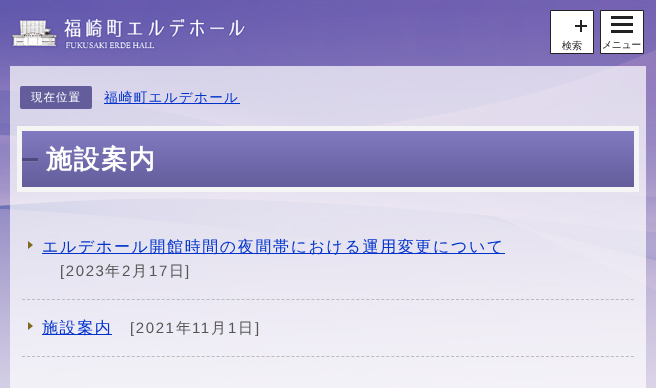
<!DOCTYPE html>
<meta charset="utf-8">
<style>body { margin: 0 } canvas { display: block }</style>
<canvas id="canvas" width="656" height="388"></canvas>
<img id="img1" src="images/1.png" hidden>
<img id="img2" src="images/2.png" hidden>
<script>
window.onload = function () {
    const canvas = document.getElementById('canvas');
    const context = canvas.getContext('2d');
    context.miterLimit = 4;
    context.fontKerning = 'normal';
    let gradient;

    context.fillStyle = 'rgb(255, 255, 255)';
    context.fillRect(0, 0, 656, 388);
    context.drawImage(document.getElementById('img1'), 0, 0, 656, 388);
    context.drawImage(document.getElementById('img2'), 11, 17, 235, 33);
    context.beginPath();
    context.rect(550.5, 10.5, 43, 43);
    context.fill();
    context.strokeStyle = 'rgb(34, 34, 34)';
    context.stroke();
    context.fillStyle = 'rgb(34, 34, 34)';
    context.fillRect(575, 25, 12, 2);
    context.fillRect(580, 20, 2, 12);
    context.fillStyle = 'rgb(255, 255, 255)';
    context.beginPath();
    context.rect(600.5, 10.5, 43, 43);
    context.fill();
    context.stroke();
    context.fillStyle = 'rgb(34, 34, 34)';
    context.fillRect(611, 16, 22, 3);
    context.fillRect(611, 23, 22, 3);
    context.fillRect(611, 30, 22, 3);
    context.fillStyle = 'rgb(220, 220, 220)';
    context.fillRect(17, 126, 622, 66);
    context.fillStyle = 'rgba(255, 255, 255, 0.7)';
    context.fillRect(10, 66, 636, 64);
    context.fillStyle = 'rgb(99, 93, 155)';
    context.beginPath();
    context.roundRect(20, 86, 72, 23, 2);
    context.fill();
    context.fillStyle = 'rgb(0, 51, 204)';
    context.fillRect(104, 103, 136, 1);
    context.fillStyle = 'rgba(255, 255, 255, 0.7)';
    context.fillRect(10, 130, 636, 258);
    gradient = context.createLinearGradient(328, 131, 328, 187);
    gradient.addColorStop(0, 'rgb(129, 122, 192)');
    gradient.addColorStop(1, 'rgb(99, 93, 155)');
    context.fillStyle = gradient;
    context.fillRect(22, 131, 612, 56);
    context.fillStyle = 'rgb(77, 72, 128)';
    context.fillRect(22, 158, 16, 3);
    context.fillStyle = 'rgb(122, 118, 160)';
    context.fillRect(22, 161, 16, 1);
    context.beginPath();
    context.moveTo(22, 299.5);
    context.lineTo(634, 299.5);
    context.strokeStyle = 'rgb(187, 187, 187)';
    context.setLineDash([3, 1.99]);
    context.stroke();
    context.fillStyle = 'rgb(127, 105, 28)';
    context.beginPath();
    context.moveTo(28, 249);
    context.lineTo(28, 241);
    context.lineTo(33, 245);
    context.closePath();
    context.fill();
    context.fillStyle = 'rgb(0, 51, 204)';
    context.fillRect(42, 253, 463, 1);
    context.beginPath();
    context.moveTo(22, 356.5);
    context.lineTo(634, 356.5);
    context.stroke();
    context.fillStyle = 'rgb(127, 105, 28)';
    context.beginPath();
    context.moveTo(28, 330);
    context.lineTo(28, 322);
    context.lineTo(33, 326);
    context.closePath();
    context.fill();
    context.fillStyle = 'rgb(0, 51, 204)';
    context.fillRect(42, 334, 70, 1);
    context.font = '500 10px WenQuanYi Zen Hei';
    context.fillStyle = 'rgb(34, 34, 34)';
    context.fillText('検索', 562, 49);
    context.letterSpacing = '-0.5px';
    context.fillText('メニュー', 602, 48);
    context.letterSpacing = '1px';
    context.font = '500 11.5px WenQuanYi Zen Hei';
    context.fillStyle = 'rgb(255, 255, 255)';
    context.fillText('現在位置', 31, 101);
    context.letterSpacing = '1.25px';
    context.font = '500 13.6px WenQuanYi Zen Hei';
    context.fillStyle = 'rgb(0, 51, 204)';
    context.fillText('福崎町エルデホール', 104, 102);
    context.letterSpacing = '1.6px';
    context.font = 'bold 26px WenQuanYi Zen Hei';
    context.fillStyle = 'rgb(255, 255, 255)';
    context.fillText('施設案内', 46, 168);
    context.font = '500 16px WenQuanYi Zen Hei';
    context.fillStyle = 'rgb(0, 51, 204)';
    context.fillText('エルデホール開館時間の夜間帯における運用変更について', 42, 252);
    context.font = '15px Liberation Sans';
    context.fillStyle = 'rgb(85, 85, 85)';
    context.fillText('[2023', 60, 276);
    context.font = '500 15px WenQuanYi Zen Hei';
    context.fillText('年', 105, 276);
    context.font = '15px Liberation Sans';
    context.fillText('2', 122, 276);
    context.font = '500 15px WenQuanYi Zen Hei';
    context.fillText('月', 132, 276);
    context.font = '15px Liberation Sans';
    context.fillText('17', 149, 276);
    context.font = '500 15px WenQuanYi Zen Hei';
    context.fillText('日', 169, 276);
    context.font = '15px Liberation Sans';
    context.fillText(']', 185, 276);
    context.font = '500 16px WenQuanYi Zen Hei';
    context.fillStyle = 'rgb(0, 51, 204)';
    context.fillText('施設案内', 42, 333);
    context.font = '15px Liberation Sans';
    context.fillStyle = 'rgb(85, 85, 85)';
    context.fillText('[2021', 130, 333);
    context.font = '500 15px WenQuanYi Zen Hei';
    context.fillText('年', 176, 333);
    context.font = '15px Liberation Sans';
    context.fillText('11', 192, 333);
    context.font = '500 15px WenQuanYi Zen Hei';
    context.fillText('月', 211, 333);
    context.font = '15px Liberation Sans';
    context.fillText('1', 228, 333);
    context.font = '500 15px WenQuanYi Zen Hei';
    context.fillText('日', 238, 333);
    context.font = '15px Liberation Sans';
    context.fillText(']', 255, 333);
};
</script>
